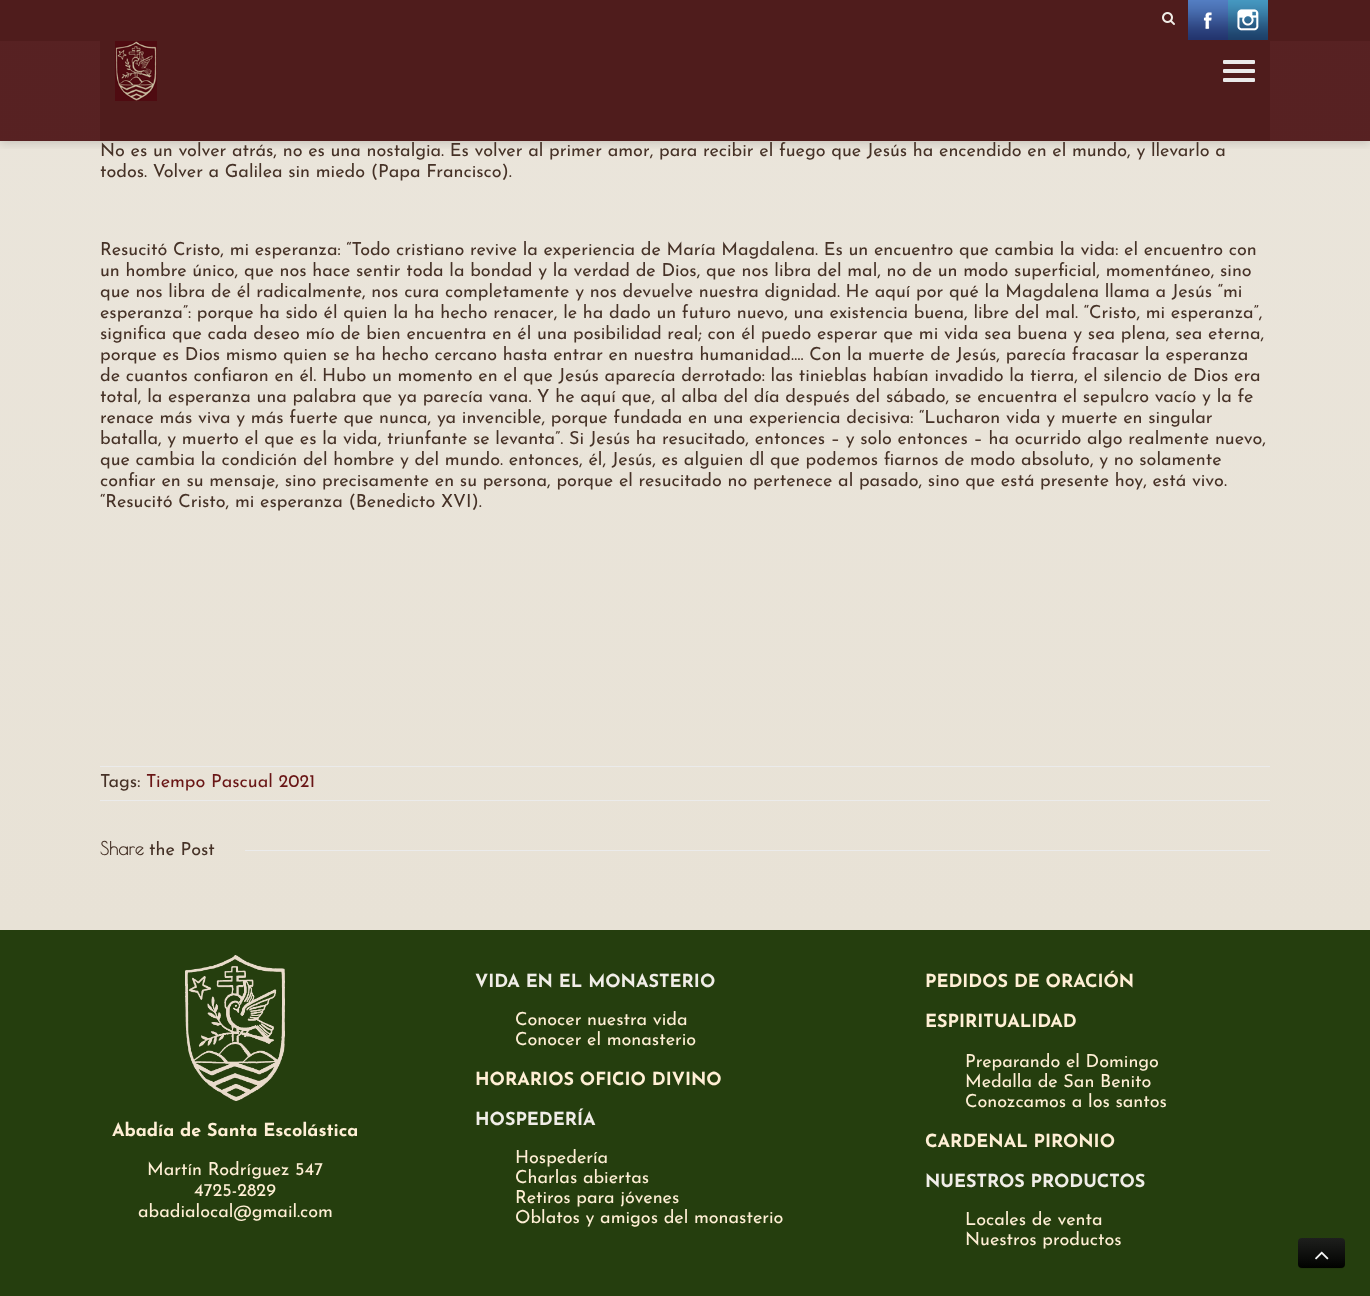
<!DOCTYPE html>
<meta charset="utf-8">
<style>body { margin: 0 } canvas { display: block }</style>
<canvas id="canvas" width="1370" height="1296"></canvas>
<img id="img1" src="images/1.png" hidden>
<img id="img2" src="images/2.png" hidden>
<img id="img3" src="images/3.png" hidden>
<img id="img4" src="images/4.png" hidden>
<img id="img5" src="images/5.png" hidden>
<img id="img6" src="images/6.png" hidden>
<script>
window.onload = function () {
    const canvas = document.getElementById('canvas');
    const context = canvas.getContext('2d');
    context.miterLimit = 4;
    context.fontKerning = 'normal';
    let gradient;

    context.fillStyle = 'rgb(37, 62, 14)';
    context.fillRect(0, 0, 1370, 1296);
    gradient = context.createLinearGradient(685, -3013, 685, 930);
    gradient.addColorStop(0, 'rgb(242, 240, 237)');
    gradient.addColorStop(1, 'rgb(232, 226, 214)');
    context.fillStyle = gradient;
    context.fillRect(0, 141, 1370, 789);
    gradient = context.createLinearGradient(685, -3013, 685, 930);
    gradient.addColorStop(0, 'rgb(87, 34, 35)');
    gradient.addColorStop(1, 'rgb(87, 33, 34)');
    context.fillStyle = gradient;
    context.fillRect(0, 41, 1370, 100);
    context.save();
    context.beginPath();
    context.rect(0, 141, 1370, 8);
    context.clip();
    context.fillStyle = 'rgba(0, 0, 0, 0.15)';
    context.filter = 'blur(5px)';
    context.beginPath();
    context.rect(0, 2, 1370, 141);
    context.fill();
    context.filter = 'none';
    context.restore();
    context.fillStyle = 'rgb(79, 28, 28)';
    context.fillRect(0, 0, 1370, 41);
    context.drawImage(document.getElementById('img1'), 1162, 12, 13, 13);
    context.drawImage(document.getElementById('img2'), 1188, 0, 40, 40);
    context.drawImage(document.getElementById('img3'), 1228, 0, 40, 40);
    context.fillRect(100, 41, 1170, 100);
    context.drawImage(document.getElementById('img4'), 115, 41, 42, 60);
    context.fillStyle = 'rgb(234, 234, 234)';
    context.beginPath();
    context.roundRect(1223, 60, 32, 4, 1);
    context.fill();
    context.beginPath();
    context.roundRect(1223, 69, 32, 4, 1);
    context.fill();
    context.beginPath();
    context.roundRect(1223, 78, 32, 4, 1);
    context.fill();
    context.fillStyle = 'rgb(235, 235, 235)';
    context.fillRect(100, 766, 1170, 1);
    context.fillRect(100, 800, 1170, 1);
    context.fillRect(245, 850, 1025, 1);
    context.drawImage(document.getElementById('img5'), 185, 955, 100, 146);
    context.fillStyle = 'rgb(34, 57, 13)';
    context.beginPath();
    context.moveTo(1298, 1264);
    context.bezierCurveTo(1298, 1270, 1304, 1269, 1308, 1269);
    context.lineTo(1334, 1269);
    context.bezierCurveTo(1339, 1269, 1345, 1270, 1345, 1264);
    context.bezierCurveTo(1345, 1266, 1343, 1268, 1341, 1268);
    context.lineTo(1302, 1268);
    context.bezierCurveTo(1300, 1268, 1298, 1266, 1298, 1264);
    context.closePath();
    context.fill();
    gradient = context.createLinearGradient(1322, 1238, 1322, 1268);
    gradient.addColorStop(0, 'rgb(30, 31, 29)');
    gradient.addColorStop(1, 'rgb(1, 2, 0)');
    context.fillStyle = gradient;
    context.beginPath();
    context.roundRect(1298, 1238, 47, 30, 4);
    context.fill();
    context.drawImage(document.getElementById('img6'), 1315, 1251, 14, 9);
    context.font = '18px Josefin Sans';
    context.fillStyle = 'rgb(70, 50, 39)';
    context.fillText('No es un volver atrás, no es una nostalgia. Es volver al primer amor, para recibir el fuego que Jesús ha encendido en el mundo, y llevarlo a', 100, 156);
    context.fillText('todos. Volver a Galilea sin miedo (Papa Francisco).', 100, 177);
    context.fillText('Resucitó Cristo, mi esperanza: “Todo cristiano revive la experiencia de María Magdalena. Es un encuentro que cambia la vida: el encuentro con', 100, 255);
    context.fillText('un hombre único, que nos hace sentir toda la bondad y la verdad de Dios, que nos libra del mal, no de un modo superficial, momentáneo, sino', 100, 276);
    context.fillText('que nos libra de él radicalmente, nos cura completamente y nos devuelve nuestra dignidad. He aquí por qué la Magdalena llama a Jesús “mi', 100, 297);
    context.fillText('esperanza”: porque ha sido él quien la ha hecho renacer, le ha dado un futuro nuevo, una existencia buena, libre del mal. “Cristo, mi esperanza”,', 100, 318);
    context.fillText('significa que cada deseo mío de bien encuentra en él una posibilidad real; con él puedo esperar que mi vida sea buena y sea plena, sea eterna,', 100, 339);
    context.fillText('porque es Dios mismo quien se ha hecho cercano hasta entrar en nuestra humanidad…. Con la muerte de Jesús, parecía fracasar la esperanza', 100, 360);
    context.fillText('de cuantos confiaron en él. Hubo un momento en el que Jesús aparecía derrotado: las tinieblas habían invadido la tierra, el silencio de Dios era', 100, 381);
    context.fillText('total, la esperanza una palabra que ya parecía vana. Y he aquí que, al alba del día después del sábado, se encuentra el sepulcro vacío y la fe', 100, 402);
    context.fillText('renace más viva y más fuerte que nunca, ya invencible, porque fundada en una experiencia decisiva: “Lucharon vida y muerte en singular', 100, 423);
    context.fillText('batalla, y muerto el que es la vida, triunfante se levanta”. Si Jesús ha resucitado, entonces – y solo entonces – ha ocurrido algo realmente nuevo,', 100, 444);
    context.fillText('que cambia la condición del hombre y del mundo. entonces, él, Jesús, es alguien dl que podemos fiarnos de modo absoluto, y no solamente', 100, 465);
    context.fillText('confiar en su mensaje, sino precisamente en su persona, porque el resucitado no pertenece al pasado, sino que está presente hoy, está vivo.', 100, 486);
    context.fillText('“Resucitó Cristo, mi esperanza (Benedicto XVI).', 100, 507);
    context.fillText('Tags:', 100, 787);
    context.fillStyle = 'rgb(105, 22, 22)';
    context.fillText('Tiempo Pascual 2021', 146, 787);
    context.font = 'bold 18px Poiret One';
    context.fillStyle = 'rgb(70, 50, 39)';
    context.fillText('Share', 100, 855);
    context.font = '18px Josefin Sans';
    context.fillText('the Post', 149, 855);
    context.font = 'bold 18px Josefin Sans';
    context.fillStyle = 'rgb(255, 239, 213)';
    context.fillText('Abadía de Santa Escolástica', 112, 1136);
    context.font = '18px Josefin Sans';
    context.fillText('Martín Rodríguez 547', 147, 1175);
    context.fillText('4725-2829', 194, 1196);
    context.fillText('abadialocal@gmail.com', 138, 1217);
    context.font = 'bold 18px Josefin Sans';
    context.fillStyle = 'rgb(240, 237, 231)';
    context.fillText('VIDA EN EL MONASTERIO', 475, 987);
    context.font = '18px Josefin Sans';
    context.fillStyle = 'rgb(255, 239, 213)';
    context.fillText('Conocer nuestra vida', 515, 1025);
    context.fillText('Conocer el monasterio', 515, 1045);
    context.font = 'bold 18px Josefin Sans';
    context.fillText('HORARIOS OFICIO DIVINO', 475, 1085);
    context.fillStyle = 'rgb(240, 237, 231)';
    context.fillText('HOSPEDERÍA', 475, 1125);
    context.font = '18px Josefin Sans';
    context.fillStyle = 'rgb(255, 239, 213)';
    context.fillText('Hospedería', 515, 1163);
    context.fillText('Charlas abiertas', 515, 1183);
    context.fillText('Retiros para jóvenes', 515, 1203);
    context.fillText('Oblatos y amigos del monasterio', 515, 1223);
    context.font = 'bold 18px Josefin Sans';
    context.fillText('PEDIDOS DE ORACIÓN', 925, 987);
    context.fillText('ESPIRITUALIDAD', 925, 1027);
    context.font = '18px Josefin Sans';
    context.fillText('Preparando el Domingo', 965, 1067);
    context.fillText('Medalla de San Benito', 965, 1087);
    context.fillText('Conozcamos a los santos', 965, 1107);
    context.font = 'bold 18px Josefin Sans';
    context.fillText('CARDENAL PIRONIO', 925, 1147);
    context.fillStyle = 'rgb(240, 237, 231)';
    context.fillText('NUESTROS PRODUCTOS', 925, 1187);
    context.font = '18px Josefin Sans';
    context.fillStyle = 'rgb(255, 239, 213)';
    context.fillText('Locales de venta', 965, 1225);
    context.fillText('Nuestros productos', 965, 1245);
};
</script>
